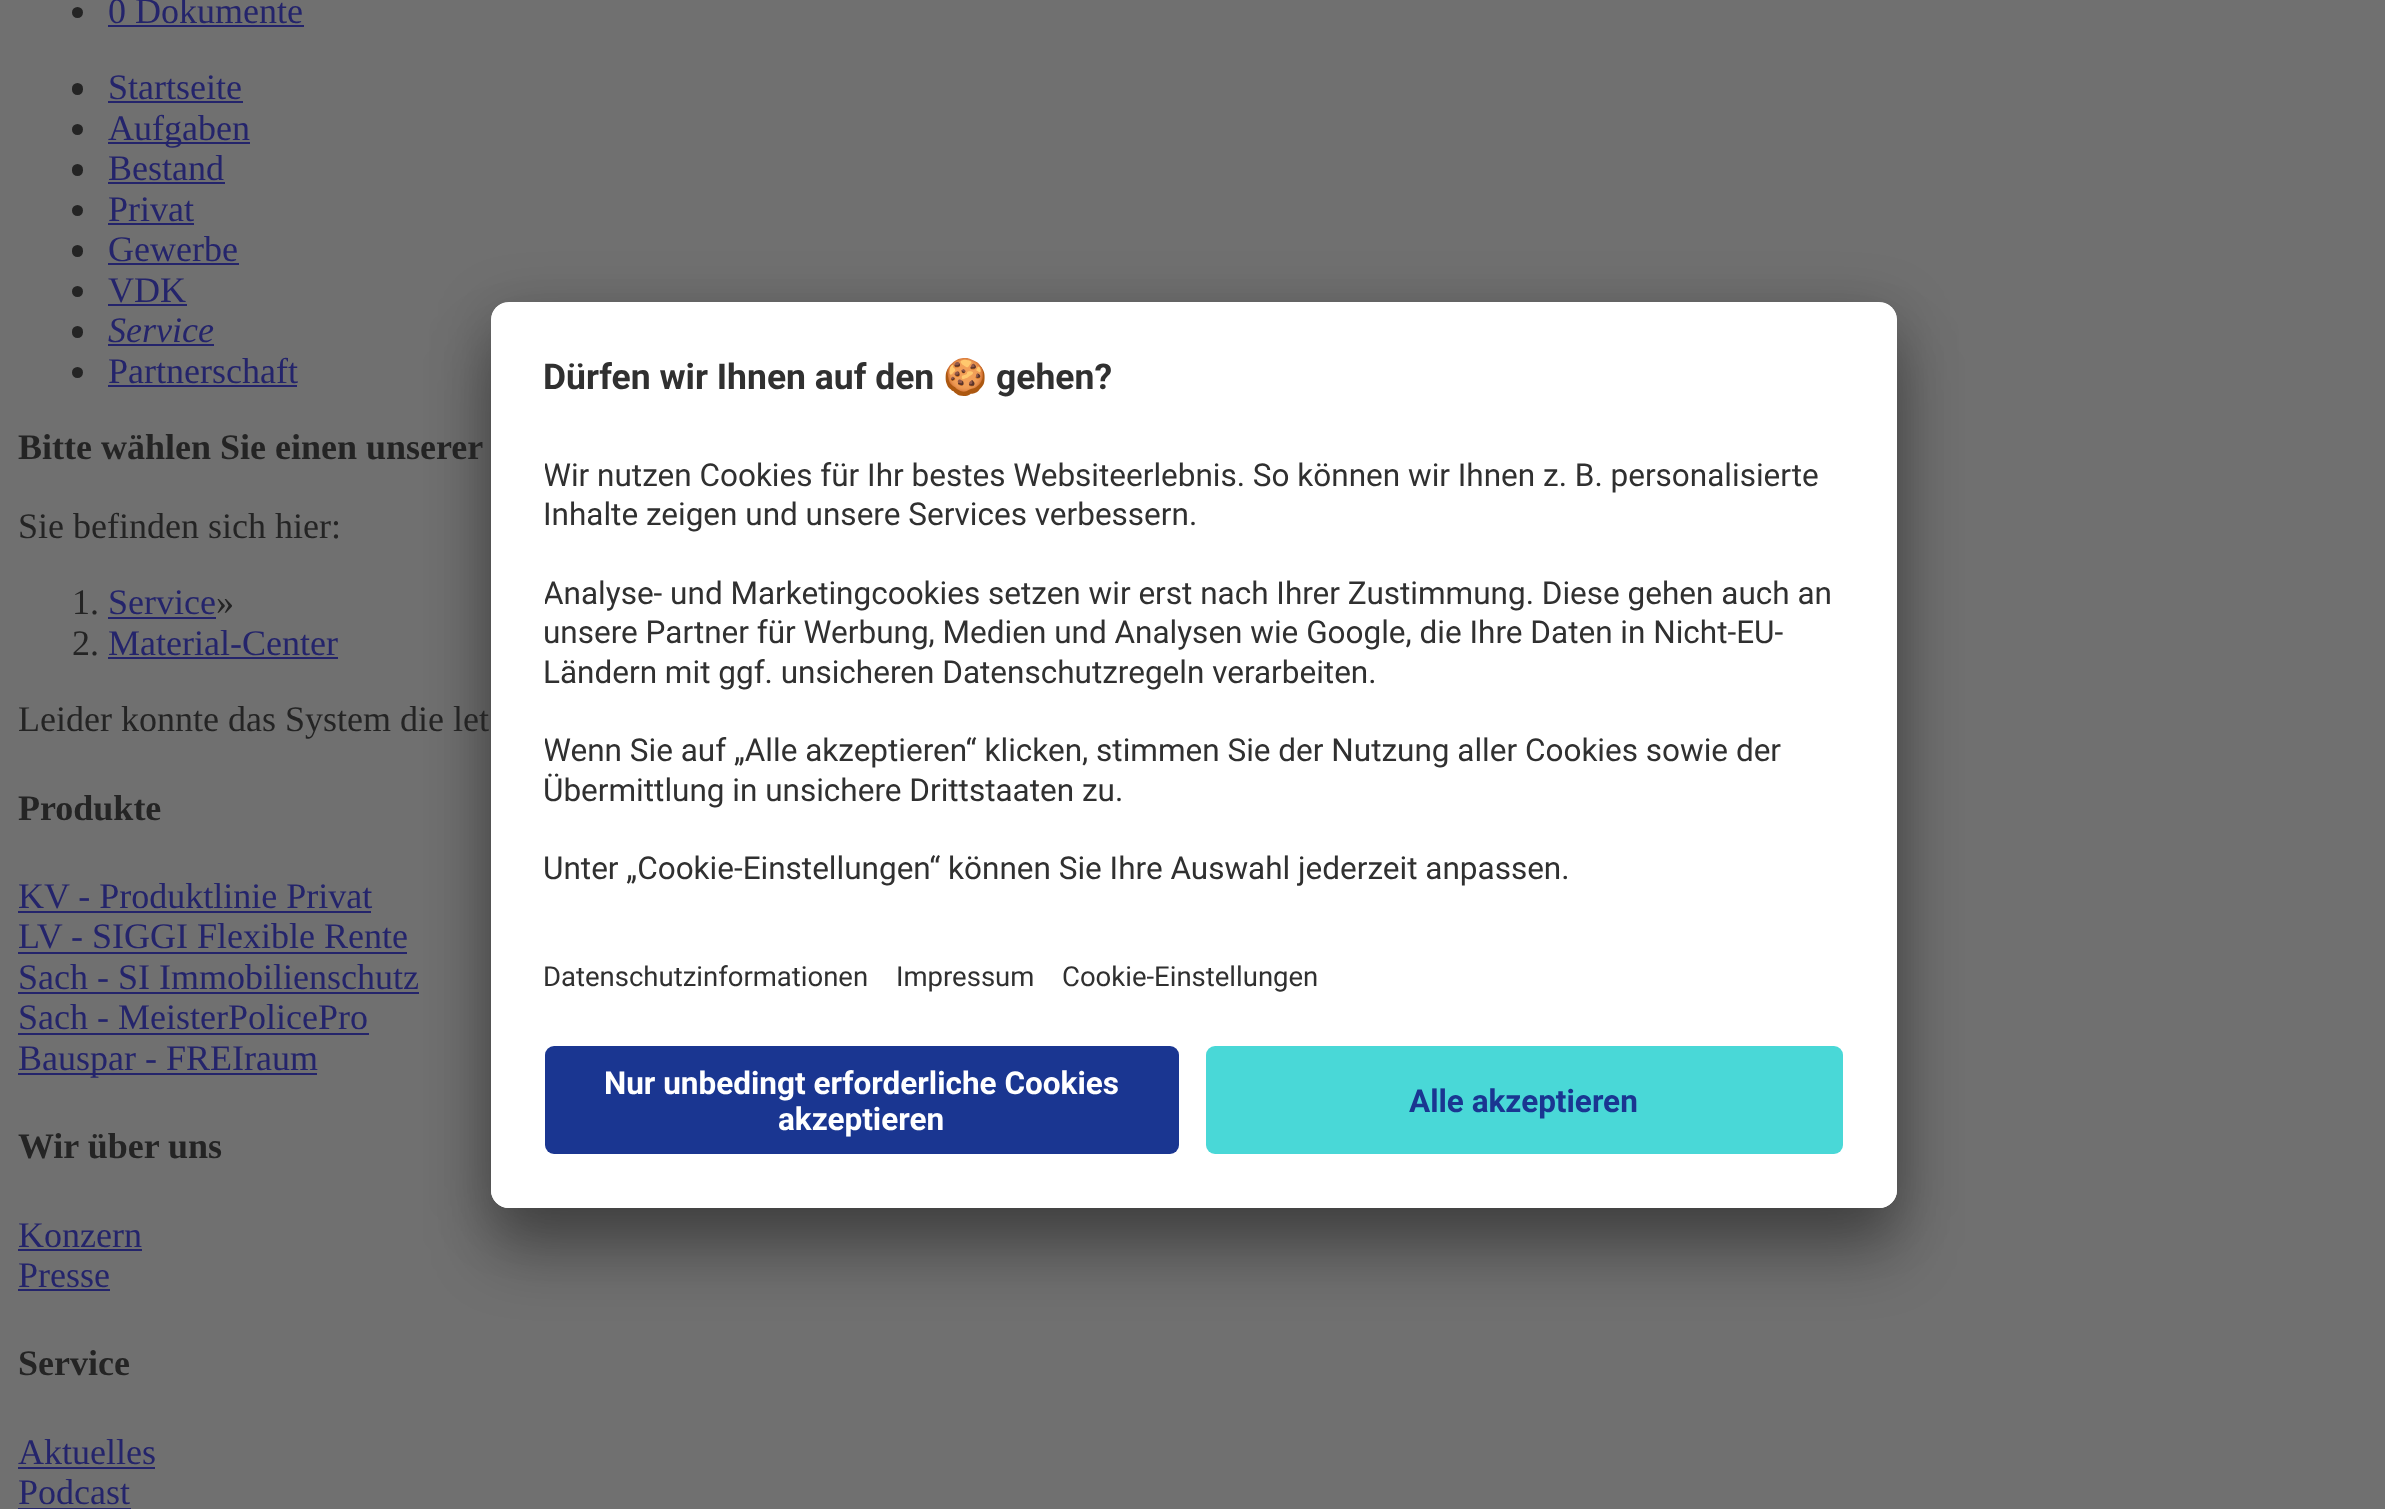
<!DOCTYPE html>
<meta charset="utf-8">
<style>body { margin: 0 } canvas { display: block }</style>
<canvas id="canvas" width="2385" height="1509"></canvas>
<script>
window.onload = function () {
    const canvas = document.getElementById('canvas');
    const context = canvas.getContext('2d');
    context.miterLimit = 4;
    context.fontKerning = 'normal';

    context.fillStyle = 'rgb(112, 112, 112)';
    context.fillRect(0, 0, 2385, 1509);
    context.fillStyle = 'rgb(36, 36, 36)';
    context.beginPath();
    context.arc(77.5, 12.5, 5.5, 0, 2 * Math.PI);
    context.fill();
    context.fillStyle = 'rgb(36, 36, 107)';
    context.fillRect(108, 25, 196, 2);
    context.fillStyle = 'rgb(36, 36, 36)';
    context.beginPath();
    context.roundRect(72, 83, 11, 12, 5.5);
    context.fill();
    context.fillStyle = 'rgb(36, 36, 107)';
    context.fillRect(108, 101, 135, 2);
    context.fillStyle = 'rgb(36, 36, 36)';
    context.beginPath();
    context.arc(77.5, 129.5, 5.5, 0, 2 * Math.PI);
    context.fill();
    context.fillStyle = 'rgb(36, 36, 107)';
    context.fillRect(108, 142, 142, 2);
    context.fillStyle = 'rgb(36, 36, 36)';
    context.beginPath();
    context.roundRect(72, 164, 11, 12, 5.5);
    context.fill();
    context.fillStyle = 'rgb(36, 36, 107)';
    context.fillRect(108, 182, 117, 2);
    context.fillStyle = 'rgb(36, 36, 36)';
    context.beginPath();
    context.arc(77.5, 210.5, 5.5, 0, 2 * Math.PI);
    context.fill();
    context.fillStyle = 'rgb(36, 36, 107)';
    context.fillRect(108, 223, 86, 2);
    context.fillStyle = 'rgb(36, 36, 36)';
    context.beginPath();
    context.roundRect(72, 245, 11, 12, 5.5);
    context.fill();
    context.fillStyle = 'rgb(36, 36, 107)';
    context.fillRect(108, 263, 131, 2);
    context.fillStyle = 'rgb(36, 36, 36)';
    context.beginPath();
    context.arc(77.5, 291.5, 5.5, 0, 2 * Math.PI);
    context.fill();
    context.fillStyle = 'rgb(36, 36, 107)';
    context.fillRect(108, 304, 79, 2);
    context.fillStyle = 'rgb(36, 36, 36)';
    context.beginPath();
    context.roundRect(72, 326, 11, 12, 5.5);
    context.fill();
    context.fillStyle = 'rgb(36, 36, 107)';
    context.fillRect(108, 344, 106, 2);
    context.fillStyle = 'rgb(36, 36, 36)';
    context.beginPath();
    context.arc(77.5, 372.5, 5.5, 0, 2 * Math.PI);
    context.fill();
    context.fillStyle = 'rgb(36, 36, 107)';
    context.fillRect(108, 385, 189, 2);
    context.fillRect(108, 617, 108, 2);
    context.fillRect(108, 657, 230, 2);
    context.fillRect(18, 911, 353, 2);
    context.fillRect(18, 952, 389, 2);
    context.fillRect(18, 992, 401, 2);
    context.fillRect(18, 1033, 351, 2);
    context.fillRect(18, 1073, 299, 2);
    context.fillRect(18, 1249, 124, 2);
    context.fillRect(18, 1289, 92, 2);
    context.fillRect(18, 1467, 137, 2);
    context.fillRect(18, 1508, 113, 1);
    context.fillStyle = 'rgba(0, 0, 0, 0.3)';
    context.filter = 'blur(31.5px)';
    context.beginPath();
    context.roundRect(491, 347, 1406, 906, 18);
    context.fill();
    context.filter = 'none';
    context.fillStyle = 'rgba(0, 0, 0, 0.22)';
    context.filter = 'blur(29px)';
    context.beginPath();
    context.roundRect(491, 313, 1406, 907, 18);
    context.fill();
    context.filter = 'none';
    context.fillStyle = 'rgb(255, 255, 255)';
    context.beginPath();
    context.roundRect(491, 302, 1406, 906, 18);
    context.fill();
    context.save();
    context.beginPath();
    context.roundRect(491, 302, 1406, 906, 18);
    context.clip();
    context.beginPath();
    context.roundRect(491, 302, 1406, 726, [18, 18, 0, 0]);
    context.clip();
    context.fillRect(491, 304, 1406, 724);
    context.restore();
    context.beginPath();
    context.roundRect(491, 1028, 1406, 180, [0, 0, 18, 18]);
    context.fill();
    context.fillStyle = 'rgb(26, 54, 145)';
    context.beginPath();
    context.roundRect(545, 1046, 634, 108, 9);
    context.fill();
    context.fillStyle = 'rgb(73, 216, 215)';
    context.beginPath();
    context.roundRect(1206, 1046, 637, 108, 9);
    context.fill();
    context.font = '36px Liberation Serif';
    context.fillStyle = 'rgb(36, 36, 107)';
    context.fillText('0 Dokumente', 108, 23);
    context.fillText('Startseite', 108, 99);
    context.fillText('Aufgaben', 108, 140);
    context.fillText('Bestand', 108, 180);
    context.fillText('Privat', 108, 221);
    context.fillText('Gewerbe', 108, 261);
    context.fillText('VDK', 108, 302);
    context.font = 'italic 36px Liberation Serif';
    context.fillText('Service', 108, 342);
    context.font = '36px Liberation Serif';
    context.fillText('Partnerschaft', 108, 383);
    context.font = 'bold 36px Liberation Serif';
    context.fillStyle = 'rgb(36, 36, 36)';
    context.fillText('Bitte wählen Sie einen unserer', 18, 459);
    context.font = '36px Liberation Serif';
    context.fillText('Sie befinden sich hier:', 18, 538);
    context.fillText('1.', 72, 614);
    context.fillStyle = 'rgb(36, 36, 107)';
    context.fillText('Service', 108, 614);
    context.fillStyle = 'rgb(36, 36, 36)';
    context.fillText('»', 216, 614);
    context.fillText('2.', 72, 655);
    context.fillStyle = 'rgb(36, 36, 107)';
    context.fillText('Material-Center', 108, 655);
    context.fillStyle = 'rgb(36, 36, 36)';
    context.fillText('Leider konnte das System die let', 18, 731);
    context.font = 'bold 36px Liberation Serif';
    context.fillText('Produkte', 18, 820);
    context.font = '36px Liberation Serif';
    context.fillStyle = 'rgb(36, 36, 107)';
    context.fillText('KV - Produktlinie Privat', 18, 908);
    context.fillText('LV - SIGGI Flexible Rente', 18, 948);
    context.fillText('Sach - SI Immobilienschutz', 18, 989);
    context.fillText('Sach - MeisterPolicePro', 18, 1029);
    context.fillText('Bauspar - FREIraum', 18, 1070);
    context.font = 'bold 36px Liberation Serif';
    context.fillStyle = 'rgb(36, 36, 36)';
    context.fillText('Wir über uns', 18, 1158);
    context.font = '36px Liberation Serif';
    context.fillStyle = 'rgb(36, 36, 107)';
    context.fillText('Konzern', 18, 1247);
    context.fillText('Presse', 18, 1287);
    context.font = 'bold 36px Liberation Serif';
    context.fillStyle = 'rgb(36, 36, 36)';
    context.fillText('Service', 18, 1375);
    context.font = '36px Liberation Serif';
    context.fillStyle = 'rgb(36, 36, 107)';
    context.fillText('Aktuelles', 18, 1464);
    context.fillText('Podcast', 18, 1504);
    context.font = 'bold 35.5px Roboto';
    context.fillStyle = 'rgb(48, 48, 48)';
    context.fillText('Dürfen wir Ihnen auf den', 543, 389);
    context.font = 'bold 35.5px Noto Color Emoji';
    context.fillText('🍪', 943, 389);
    context.font = 'bold 35.5px Roboto';
    context.fillText('gehen?', 996, 389);
    context.save();
    context.beginPath();
    context.rect(545, 416, 1298, 482);
    context.clip();
    context.font = '31.5px Roboto';
    context.fillText('Wir nutzen Cookies für Ihr bestes Websiteerlebnis. So können wir Ihnen z. B. personalisierte', 543, 486);
    context.restore();
    context.font = '31.5px Roboto';
    context.fillText('Inhalte zeigen und unsere Services verbessern.', 543, 525);
    context.save();
    context.beginPath();
    context.rect(545, 416, 1298, 482);
    context.clip();
    context.fillText('Analyse- und Marketingcookies setzen wir erst nach Ihrer Zustimmung. Diese gehen auch an', 543, 604);
    context.restore();
    context.fillText('unsere Partner für Werbung, Medien und Analysen wie Google, die Ihre Daten in Nicht-EU-', 543, 643);
    context.fillText('Ländern mit ggf. unsicheren Datenschutzregeln verarbeiten.', 543, 683);
    context.save();
    context.beginPath();
    context.rect(545, 416, 1298, 482);
    context.clip();
    context.fillText('Wenn Sie auf „Alle akzeptieren“ klicken, stimmen Sie der Nutzung aller Cookies sowie der', 543, 761);
    context.restore();
    context.fillText('Übermittlung in unsichere Drittstaaten zu.', 543, 801);
    context.fillText('Unter „Cookie-Einstellungen“ können Sie Ihre Auswahl jederzeit anpassen.', 543, 879);
    context.font = '27.5px Roboto';
    context.fillText('Datenschutzinformationen', 543, 986);
    context.fillText('Impressum', 896, 986);
    context.fillText('Cookie-Einstellungen', 1062, 986);
    context.font = 'bold 31.5px Roboto';
    context.fillStyle = 'rgb(255, 255, 255)';
    context.fillText('Nur unbedingt erforderliche Cookies', 604, 1094);
    context.fillText('akzeptieren', 778, 1130);
    context.fillStyle = 'rgb(26, 54, 145)';
    context.fillText('Alle akzeptieren', 1409, 1112);
};
</script>
